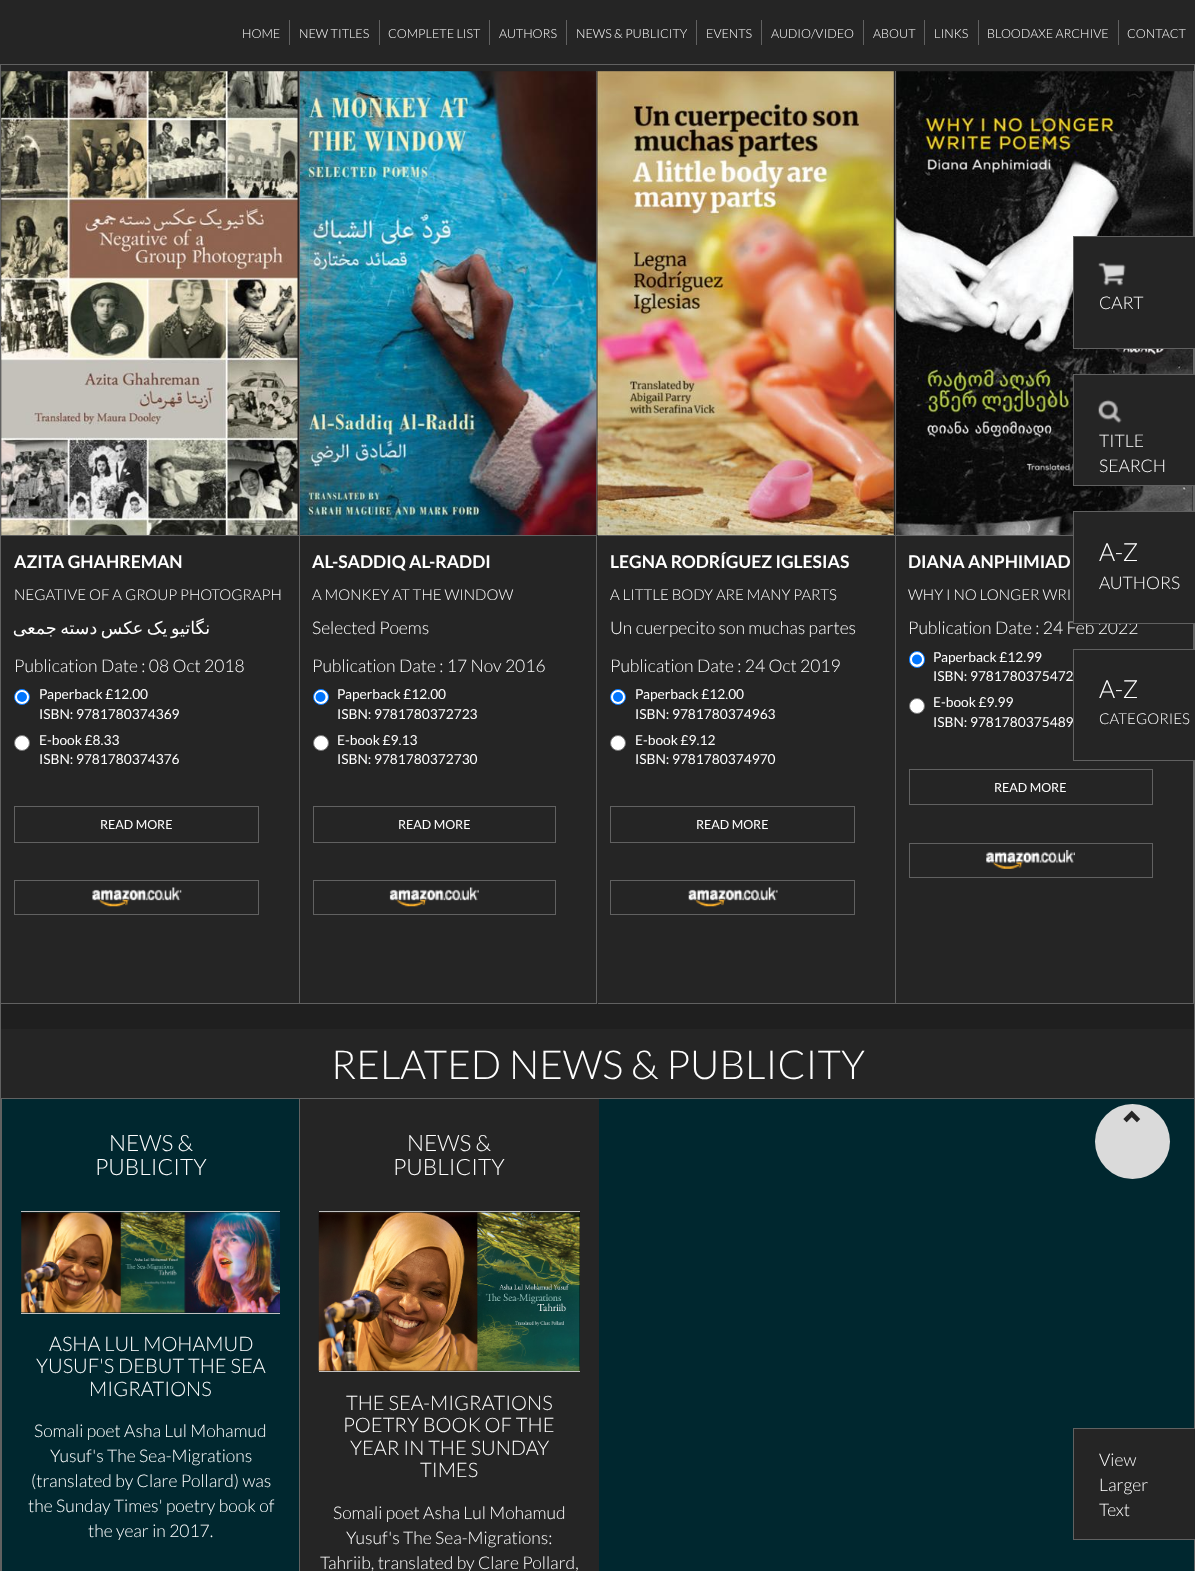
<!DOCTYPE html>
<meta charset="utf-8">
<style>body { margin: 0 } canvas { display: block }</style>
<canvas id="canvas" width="1195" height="1571"></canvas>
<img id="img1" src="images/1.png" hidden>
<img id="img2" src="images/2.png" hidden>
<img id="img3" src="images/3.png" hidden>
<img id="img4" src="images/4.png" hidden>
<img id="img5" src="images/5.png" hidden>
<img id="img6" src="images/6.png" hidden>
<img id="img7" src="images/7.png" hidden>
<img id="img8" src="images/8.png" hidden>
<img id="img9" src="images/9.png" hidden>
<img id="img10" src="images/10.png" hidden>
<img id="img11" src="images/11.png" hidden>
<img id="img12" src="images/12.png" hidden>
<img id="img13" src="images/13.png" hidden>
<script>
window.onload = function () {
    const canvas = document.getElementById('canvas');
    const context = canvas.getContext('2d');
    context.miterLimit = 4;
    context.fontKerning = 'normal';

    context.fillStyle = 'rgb(37, 37, 37)';
    context.fillRect(0, 0, 1195, 1571);
    context.fillStyle = 'rgb(97, 97, 97)';
    context.fillRect(0, 64, 1195, 1);
    context.fillRect(289, 20, 1, 25);
    context.fillRect(379, 20, 1, 25);
    context.fillRect(489, 20, 1, 25);
    context.fillRect(566, 20, 1, 25);
    context.fillRect(696, 20, 1, 25);
    context.fillRect(761, 20, 1, 25);
    context.fillRect(863, 20, 1, 25);
    context.fillRect(924, 20, 1, 25);
    context.fillRect(978, 20, 1, 25);
    context.fillRect(1118, 20, 1, 25);
    context.fillRect(1194, 65, 1, 1506);
    context.fillRect(0, 65, 1, 1506);
    context.fillRect(299, 71, 1, 933);
    context.drawImage(document.getElementById('img1'), 1, 71, 297, 464);
    context.fillRect(1, 535, 298, 1);
    context.fillRect(1, 1003, 298, 1);
    context.fillStyle = 'rgb(255, 255, 255)';
    context.beginPath();
    context.arc(22, 697, 7.5, 0, 2 * Math.PI);
    context.fill();
    context.strokeStyle = 'rgb(0, 117, 255)';
    context.stroke();
    context.fillStyle = 'rgb(0, 117, 255)';
    context.beginPath();
    context.arc(22, 697, 5, 0, 2 * Math.PI);
    context.fill();
    context.fillStyle = 'rgb(255, 255, 255)';
    context.beginPath();
    context.arc(22, 743, 7.5, 0, 2 * Math.PI);
    context.fill();
    context.strokeStyle = 'rgb(118, 118, 118)';
    context.stroke();
    context.strokeStyle = 'rgb(97, 97, 97)';
    context.strokeRect(14.5, 806.5, 244, 36);
    context.drawImage(document.getElementById('img2'), 92, 887, 90, 20);
    context.strokeRect(14.5, 880.5, 244, 34);
    context.fillStyle = 'rgb(97, 97, 97)';
    context.fillRect(596, 71, 1, 933);
    context.drawImage(document.getElementById('img3'), 300, 71, 297, 464);
    context.fillRect(300, 535, 296, 1);
    context.fillRect(300, 1003, 296, 1);
    context.fillStyle = 'rgb(255, 255, 255)';
    context.beginPath();
    context.arc(321, 697, 7.5, 0, 2 * Math.PI);
    context.fill();
    context.strokeStyle = 'rgb(0, 117, 255)';
    context.stroke();
    context.fillStyle = 'rgb(0, 117, 255)';
    context.beginPath();
    context.arc(320.5, 697, 5, 0, 2 * Math.PI);
    context.fill();
    context.fillStyle = 'rgb(255, 255, 255)';
    context.beginPath();
    context.arc(321, 743, 7.5, 0, 2 * Math.PI);
    context.fill();
    context.strokeStyle = 'rgb(118, 118, 118)';
    context.stroke();
    context.strokeStyle = 'rgb(97, 97, 97)';
    context.strokeRect(313.5, 806.5, 242, 36);
    context.drawImage(document.getElementById('img4'), 389, 887, 90, 20);
    context.strokeRect(313.5, 880.5, 242, 34);
    context.fillStyle = 'rgb(97, 97, 97)';
    context.fillRect(895, 71, 1, 933);
    context.drawImage(document.getElementById('img5'), 597, 71, 297, 464);
    context.fillRect(598, 535, 297, 1);
    context.fillRect(598, 1003, 297, 1);
    context.fillStyle = 'rgb(255, 255, 255)';
    context.beginPath();
    context.arc(618, 697, 7.5, 0, 2 * Math.PI);
    context.fill();
    context.strokeStyle = 'rgb(0, 117, 255)';
    context.stroke();
    context.fillStyle = 'rgb(0, 117, 255)';
    context.beginPath();
    context.arc(618, 697, 5, 0, 2 * Math.PI);
    context.fill();
    context.fillStyle = 'rgb(255, 255, 255)';
    context.beginPath();
    context.arc(618, 743, 7.5, 0, 2 * Math.PI);
    context.fill();
    context.strokeStyle = 'rgb(118, 118, 118)';
    context.stroke();
    context.strokeStyle = 'rgb(97, 97, 97)';
    context.strokeRect(610.5, 806.5, 244, 36);
    context.drawImage(document.getElementById('img6'), 688, 887, 90, 20);
    context.strokeRect(610.5, 880.5, 244, 34);
    context.fillStyle = 'rgb(97, 97, 97)';
    context.fillRect(1193, 71, 1, 933);
    context.drawImage(document.getElementById('img7'), 896, 71, 297, 464);
    context.fillRect(896, 535, 177, 1);
    context.fillRect(896, 1003, 297, 1);
    context.fillStyle = 'rgb(255, 255, 255)';
    context.beginPath();
    context.roundRect(909.5, 651.5, 15, 16, 7.5);
    context.fill();
    context.strokeStyle = 'rgb(0, 117, 255)';
    context.stroke();
    context.fillStyle = 'rgb(0, 117, 255)';
    context.beginPath();
    context.arc(917, 659.5, 5, 0, 2 * Math.PI);
    context.fill();
    context.fillStyle = 'rgb(255, 255, 255)';
    context.beginPath();
    context.arc(917, 706, 7.5, 0, 2 * Math.PI);
    context.fill();
    context.strokeStyle = 'rgb(118, 118, 118)';
    context.stroke();
    context.strokeStyle = 'rgb(97, 97, 97)';
    context.strokeRect(909.5, 769.5, 243, 35);
    context.drawImage(document.getElementById('img8'), 986, 850, 89, 19);
    context.strokeRect(909.5, 843.5, 243, 34);
    context.fillStyle = 'rgb(31, 31, 31)';
    context.fillRect(1, 1004, 1193, 25);
    context.fillStyle = 'rgb(0, 39, 47)';
    context.fillRect(2, 1099, 1192, 472);
    context.fillStyle = 'rgb(97, 97, 97)';
    context.fillRect(1, 1098, 1193, 1);
    context.fillRect(1, 1098, 1, 473);
    context.fillRect(299, 1099, 1, 472);
    context.fillStyle = 'rgb(193, 193, 193)';
    context.fillRect(21, 1211, 259, 1);
    context.drawImage(document.getElementById('img9'), 21, 1212, 259, 101);
    context.fillRect(21, 1313, 259, 1);
    context.fillStyle = 'rgb(37, 37, 37)';
    context.fillRect(300, 1099, 299, 472);
    context.fillStyle = 'rgb(193, 193, 193)';
    context.fillRect(319, 1211, 261, 1);
    context.drawImage(document.getElementById('img10'), 318, 1212, 262, 160);
    context.fillRect(319, 1371, 261, 1);
    context.fillStyle = 'rgb(37, 37, 37)';
    context.fillRect(1074, 237, 121, 111);
    context.fillStyle = 'rgb(97, 97, 97)';
    context.fillRect(1073, 236, 122, 1);
    context.fillRect(1073, 348, 122, 1);
    context.fillRect(1073, 236, 1, 113);
    context.drawImage(document.getElementById('img11'), 1098, 262, 28, 24);
    context.fillStyle = 'rgb(37, 37, 37)';
    context.fillRect(1074, 375, 121, 110);
    context.fillStyle = 'rgb(97, 97, 97)';
    context.fillRect(1073, 374, 122, 1);
    context.fillRect(1073, 485, 122, 1);
    context.fillRect(1073, 374, 1, 112);
    context.drawImage(document.getElementById('img12'), 1098, 399, 24, 25);
    context.fillRect(1073, 511, 122, 1);
    context.fillStyle = 'rgb(37, 37, 37)';
    context.fillRect(1193, 650, 2, 110);
    context.fillStyle = 'rgb(97, 97, 97)';
    context.fillRect(1073, 649, 122, 1);
    context.fillRect(1073, 760, 122, 1);
    context.fillStyle = 'rgb(218, 218, 218)';
    context.beginPath();
    context.arc(1132.5, 1141.5, 37.5, 0, 2 * Math.PI);
    context.fill();
    context.drawImage(document.getElementById('img13'), 1123, 1110, 18, 13);
    context.fillStyle = 'rgb(37, 37, 37)';
    context.fillRect(1074, 1429, 121, 110);
    context.fillStyle = 'rgb(97, 97, 97)';
    context.fillRect(1073, 1428, 122, 1);
    context.fillRect(1073, 1539, 122, 1);
    context.fillRect(1073, 1428, 1, 112);
    context.font = '300 12.5px Lato';
    context.fillStyle = 'rgb(255, 255, 255)';
    context.fillText('HOME', 242, 38);
    context.fillText('NEW TITLES', 299, 38);
    context.fillText('COMPLETE LIST', 388, 38);
    context.fillText('AUTHORS', 499, 38);
    context.fillText('NEWS & PUBLICITY', 576, 38);
    context.fillText('EVENTS', 706, 38);
    context.fillText('AUDIO/VIDEO', 771, 38);
    context.fillText('ABOUT', 873, 38);
    context.fillText('LINKS', 934, 38);
    context.fillText('BLOODAXE ARCHIVE', 987, 38);
    context.fillText('CONTACT', 1127, 38);
    context.font = 'bold 17.5px Lato';
    context.fillText('AZITA GHAHREMAN', 14, 568);
    context.font = '300 15px Lato';
    context.fillText('NEGATIVE OF A GROUP PHOTOGRAPH', 14, 600);
    context.wordSpacing = '-2px';
    context.direction = 'rtl';
    context.font = '17.5px DejaVu Sans';
    context.fillText('نگاتیو یک عکس دسته جمعی', 210, 634);
    context.wordSpacing = '0px';
    context.direction = 'ltr';
    context.font = '300 17.5px Lato';
    context.fillText('Publication Date : 08 Oct 2018', 14, 672);
    context.font = '13.75px Lato';
    context.fillText('Paperback £12.00', 39, 699);
    context.fillText('ISBN: 9781780374369', 39, 719);
    context.fillText('E-book £8.33', 39, 745);
    context.fillText('ISBN: 9781780374376', 39, 764);
    context.font = '12.5px Lato';
    context.fillText('READ MORE', 100, 829);
    context.font = 'bold 17.5px Lato';
    context.fillText('AL-SADDIQ AL-RADDI', 312, 568);
    context.font = '300 15px Lato';
    context.fillText('A MONKEY AT THE WINDOW', 312, 600);
    context.font = '300 17.5px Lato';
    context.fillText('Selected Poems', 312, 634);
    context.fillText('Publication Date : 17 Nov 2016', 312, 672);
    context.font = '13.75px Lato';
    context.fillText('Paperback £12.00', 337, 699);
    context.fillText('ISBN: 9781780372723', 337, 719);
    context.fillText('E-book £9.13', 337, 745);
    context.fillText('ISBN: 9781780372730', 337, 764);
    context.font = '12.5px Lato';
    context.fillText('READ MORE', 398, 829);
    context.font = 'bold 17.5px Lato';
    context.fillText('LEGNA RODRÍGUEZ IGLESIAS', 610, 568);
    context.font = '300 15px Lato';
    context.fillText('A LITTLE BODY ARE MANY PARTS', 610, 600);
    context.font = '300 17.5px Lato';
    context.fillText('Un cuerpecito son muchas partes', 610, 634);
    context.fillText('Publication Date : 24 Oct 2019', 610, 672);
    context.font = '13.75px Lato';
    context.fillText('Paperback £12.00', 635, 699);
    context.fillText('ISBN: 9781780374963', 635, 719);
    context.fillText('E-book £9.12', 635, 745);
    context.fillText('ISBN: 9781780374970', 635, 764);
    context.font = '12.5px Lato';
    context.fillText('READ MORE', 696, 829);
    context.font = 'bold 17.5px Lato';
    context.fillText('DIANA ANPHIMIAD', 908, 568);
    context.font = '300 15px Lato';
    context.fillText('WHY I NO LONGER WRI', 908, 600);
    context.font = '300 17.5px Lato';
    context.fillText('Publication Date : 24 Feb 2022', 908, 634);
    context.font = '13.75px Lato';
    context.fillText('Paperback £12.99', 933, 662);
    context.fillText('ISBN: 9781780375472', 933, 681);
    context.fillText('E-book £9.99', 933, 707);
    context.fillText('ISBN: 9781780375489', 933, 727);
    context.font = '12.5px Lato';
    context.fillText('READ MORE', 994, 792);
    context.font = '300 40px Lato';
    context.fillText('RELATED NEWS & PUBLICITY', 331, 1079);
    context.font = '300 22.5px Lato';
    context.fillText('NEWS &', 109, 1151);
    context.fillText('PUBLICITY', 95, 1175);
    context.font = '300 20px Lato';
    context.fillText('ASHA LUL MOHAMUD', 49, 1351);
    context.fillText('YUSUF\'S DEBUT THE SEA', 36, 1373);
    context.fillText('MIGRATIONS', 89, 1396);
    context.font = '300 17.5px Lato';
    context.fillText('Somali poet Asha Lul Mohamud', 34, 1437);
    context.fillText('Yusuf\'s The Sea-Migrations', 50, 1462);
    context.fillText('(translated by Clare Pollard) was', 31, 1487);
    context.fillText('the Sunday Times\' poetry book of', 28, 1512);
    context.fillText('the year in 2017.', 88, 1537);
    context.font = '300 22.5px Lato';
    context.fillText('NEWS &', 407, 1151);
    context.fillText('PUBLICITY', 393, 1175);
    context.font = '300 20px Lato';
    context.fillText('THE SEA-MIGRATIONS', 346, 1410);
    context.fillText('POETRY BOOK OF THE', 343, 1432);
    context.fillText('YEAR IN THE SUNDAY', 350, 1455);
    context.fillText('TIMES', 420, 1477);
    context.font = '300 17.5px Lato';
    context.fillText('Somali poet Asha Lul Mohamud', 333, 1519);
    context.fillText('Yusuf\'s The Sea-Migrations:', 346, 1544);
    context.fillText('Tahriib, translated by Clare Pollard,', 320, 1569);
    context.fillText('CART', 1099, 309);
    context.fillText('TITLE', 1099, 447);
    context.fillText('SEARCH', 1099, 472);
    context.fillStyle = 'rgb(37, 37, 37)';
    context.fillRect(1074, 512, 121, 111);
    context.fillStyle = 'rgb(97, 97, 97)';
    context.fillRect(1073, 623, 122, 1);
    context.fillRect(1073, 511, 1, 113);
    context.font = '300 25px Lato';
    context.fillStyle = 'rgb(255, 255, 255)';
    context.fillText('A-Z', 1099, 561);
    context.font = '300 17.5px Lato';
    context.fillText('AUTHORS', 1099, 589);
    context.fillStyle = 'rgb(97, 97, 97)';
    context.fillRect(1073, 649, 1, 112);
    context.font = '300 25px Lato';
    context.fillStyle = 'rgb(255, 255, 255)';
    context.fillText('A-Z', 1099, 698);
    context.font = '300 15px Lato';
    context.fillText('CATEGORIES', 1099, 724);
    context.font = '300 17.5px Lato';
    context.fillText('View', 1099, 1466);
    context.fillText('Larger', 1099, 1491);
    context.fillText('Text', 1099, 1516);
};
</script>
